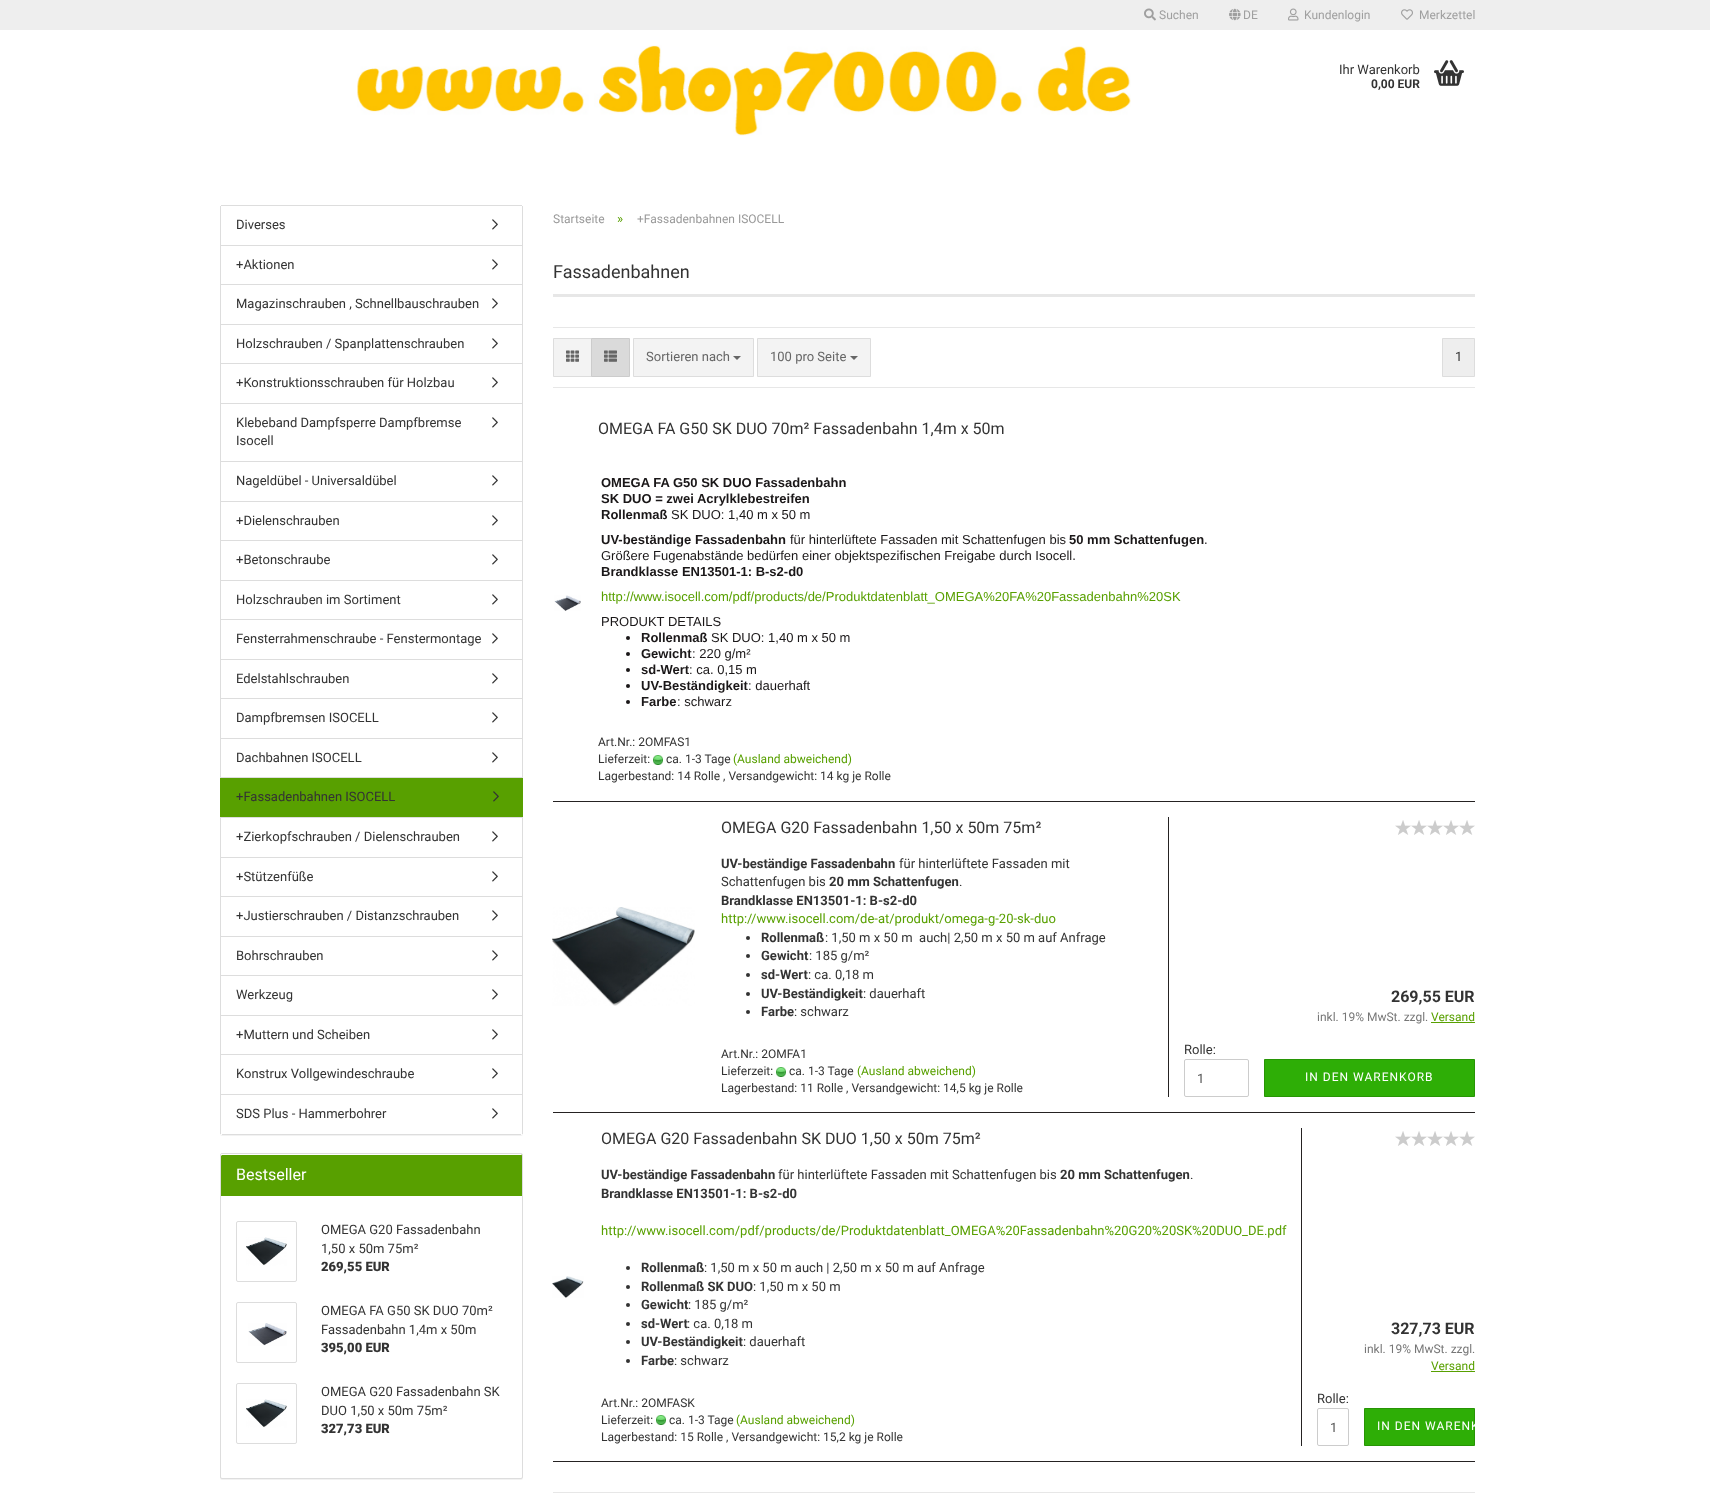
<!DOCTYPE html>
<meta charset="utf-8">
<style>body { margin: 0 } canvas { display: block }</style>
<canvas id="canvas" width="1710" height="1496"></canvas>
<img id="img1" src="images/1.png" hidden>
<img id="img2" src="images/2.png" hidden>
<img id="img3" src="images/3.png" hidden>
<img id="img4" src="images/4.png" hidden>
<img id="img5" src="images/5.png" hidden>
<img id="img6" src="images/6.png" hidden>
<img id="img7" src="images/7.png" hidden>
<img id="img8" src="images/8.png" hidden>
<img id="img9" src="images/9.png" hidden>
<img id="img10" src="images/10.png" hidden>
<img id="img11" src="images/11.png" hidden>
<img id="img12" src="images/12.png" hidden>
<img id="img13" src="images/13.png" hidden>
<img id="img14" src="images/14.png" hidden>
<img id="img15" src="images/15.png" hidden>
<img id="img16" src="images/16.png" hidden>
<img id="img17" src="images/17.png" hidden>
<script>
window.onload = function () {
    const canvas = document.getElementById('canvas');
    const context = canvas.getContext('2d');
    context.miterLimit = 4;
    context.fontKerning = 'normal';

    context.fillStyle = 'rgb(255, 255, 255)';
    context.fillRect(0, 0, 1710, 1496);
    context.fillStyle = 'rgb(238, 238, 238)';
    context.fillRect(0, 0, 1710, 30);
    context.drawImage(document.getElementById('img1'), 1144, 8, 12, 13);
    context.drawImage(document.getElementById('img2'), 1229, 8, 12, 13);
    context.drawImage(document.getElementById('img3'), 1288, 8, 11, 13);
    context.drawImage(document.getElementById('img4'), 1401, 9, 12, 11);
    context.drawImage(document.getElementById('img5'), 357, 45, 774, 91);
    context.drawImage(document.getElementById('img6'), 1434, 60, 30, 26);
    context.fillStyle = 'rgba(0, 0, 0, 0.05)';
    context.filter = 'blur(0.5px)';
    context.beginPath();
    context.roundRect(220, 206, 303, 930, 2);
    context.fill();
    context.filter = 'none';
    context.fillStyle = 'rgb(255, 255, 255)';
    context.beginPath();
    context.roundRect(220, 205, 303, 930, 2);
    context.fill();
    context.fillStyle = 'rgb(221, 221, 221)';
    context.fillRect(221, 205, 301, 1);
    context.fillRect(522, 206, 1, 928);
    context.fillRect(220, 206, 1, 928);
    context.fillRect(221, 245, 301, 1);
    context.drawImage(document.getElementById('img7'), 492, 219, 6, 11);
    context.fillRect(221, 284, 301, 1);
    context.drawImage(document.getElementById('img7'), 492, 259, 6, 11);
    context.fillRect(221, 324, 301, 1);
    context.drawImage(document.getElementById('img7'), 492, 298, 6, 11);
    context.fillRect(221, 363, 301, 1);
    context.drawImage(document.getElementById('img7'), 492, 338, 6, 11);
    context.fillRect(221, 403, 301, 1);
    context.drawImage(document.getElementById('img7'), 492, 377, 6, 11);
    context.fillRect(221, 461, 301, 1);
    context.drawImage(document.getElementById('img7'), 492, 417, 6, 11);
    context.fillRect(221, 501, 301, 1);
    context.drawImage(document.getElementById('img7'), 492, 475, 6, 11);
    context.fillRect(221, 540, 301, 1);
    context.drawImage(document.getElementById('img7'), 492, 515, 6, 11);
    context.fillRect(221, 580, 301, 1);
    context.drawImage(document.getElementById('img7'), 492, 554, 6, 11);
    context.fillRect(221, 619, 301, 1);
    context.drawImage(document.getElementById('img7'), 492, 594, 6, 11);
    context.fillRect(221, 659, 301, 1);
    context.drawImage(document.getElementById('img7'), 492, 633, 6, 11);
    context.fillRect(221, 698, 301, 1);
    context.drawImage(document.getElementById('img7'), 492, 673, 6, 11);
    context.fillRect(221, 738, 301, 1);
    context.drawImage(document.getElementById('img7'), 492, 712, 6, 11);
    context.fillRect(221, 777, 301, 1);
    context.drawImage(document.getElementById('img7'), 492, 752, 6, 11);
    context.fillRect(221, 817, 301, 1);
    context.fillStyle = 'rgb(88, 160, 0)';
    context.fillRect(220, 778, 303, 39);
    context.drawImage(document.getElementById('img8'), 493, 791, 6, 11);
    context.fillStyle = 'rgb(221, 221, 221)';
    context.fillRect(221, 857, 301, 1);
    context.drawImage(document.getElementById('img7'), 492, 831, 6, 11);
    context.fillRect(221, 896, 301, 1);
    context.drawImage(document.getElementById('img7'), 492, 871, 6, 11);
    context.fillRect(221, 936, 301, 1);
    context.drawImage(document.getElementById('img7'), 492, 910, 6, 11);
    context.fillRect(221, 975, 301, 1);
    context.drawImage(document.getElementById('img7'), 492, 950, 6, 11);
    context.fillRect(221, 1015, 301, 1);
    context.drawImage(document.getElementById('img7'), 492, 989, 6, 11);
    context.fillRect(221, 1054, 301, 1);
    context.drawImage(document.getElementById('img7'), 492, 1029, 6, 11);
    context.fillRect(221, 1094, 301, 1);
    context.drawImage(document.getElementById('img7'), 492, 1068, 6, 11);
    context.fillRect(222, 1134, 299, 1);
    context.drawImage(document.getElementById('img7'), 492, 1108, 6, 11);
    context.fillStyle = 'rgba(0, 0, 0, 0.05)';
    context.filter = 'blur(0.5px)';
    context.beginPath();
    context.roundRect(220, 1154, 303, 326, 2);
    context.fill();
    context.filter = 'none';
    context.fillStyle = 'rgb(255, 255, 255)';
    context.beginPath();
    context.roundRect(220.5, 1153.5, 302, 325, 1.5);
    context.fill();
    context.strokeStyle = 'rgb(221, 221, 221)';
    context.stroke();
    context.fillStyle = 'rgb(88, 160, 0)';
    context.beginPath();
    context.roundRect(221, 1154, 301, 42, [1, 1, 0, 0]);
    context.fill();
    context.fillStyle = 'rgb(255, 255, 255)';
    context.beginPath();
    context.moveTo(222, 1155);
    context.lineTo(521, 1155);
    context.bezierCurveTo(522, 1155, 522, 1155, 522, 1156);
    context.bezierCurveTo(522, 1155, 522, 1154, 521, 1154);
    context.lineTo(221, 1154);
    context.lineTo(221, 1156);
    context.closePath();
    context.fill();
    context.beginPath();
    context.roundRect(236.5, 1221.5, 60, 60, 1.5);
    context.stroke();
    context.drawImage(document.getElementById('img9'), 246, 1237, 41, 29);
    context.beginPath();
    context.roundRect(236.5, 1302.5, 60, 60, 1.5);
    context.stroke();
    context.drawImage(document.getElementById('img10'), 248, 1323, 39, 23);
    context.beginPath();
    context.roundRect(236.5, 1383.5, 60, 60, 1.5);
    context.stroke();
    context.drawImage(document.getElementById('img9'), 246, 1399, 41, 29);
    context.fillStyle = 'rgb(231, 231, 231)';
    context.fillRect(553, 294, 922, 3);
    context.fillRect(553, 327, 922, 1);
    context.fillRect(553, 387, 922, 1);
    context.fillStyle = 'rgb(243, 243, 243)';
    context.beginPath();
    context.rect(553.5, 338.5, 38, 38);
    context.fill();
    context.stroke();
    context.drawImage(document.getElementById('img11'), 566, 350, 13, 12);
    context.fillStyle = 'rgb(218, 218, 218)';
    context.beginPath();
    context.rect(591.5, 338.5, 38, 38);
    context.fill();
    context.strokeStyle = 'rgb(204, 204, 204)';
    context.stroke();
    context.drawImage(document.getElementById('img12'), 604, 350, 13, 12);
    context.fillStyle = 'rgb(243, 243, 243)';
    context.beginPath();
    context.rect(633.5, 338.5, 120, 38);
    context.fill();
    context.strokeStyle = 'rgb(221, 221, 221)';
    context.stroke();
    context.fillStyle = 'rgb(102, 102, 102)';
    context.beginPath();
    context.moveTo(733, 356);
    context.lineTo(741, 356);
    context.lineTo(737, 360);
    context.closePath();
    context.fill();
    context.fillStyle = 'rgb(243, 243, 243)';
    context.beginPath();
    context.rect(757.5, 338.5, 113, 38);
    context.fill();
    context.stroke();
    context.fillStyle = 'rgb(102, 102, 102)';
    context.beginPath();
    context.moveTo(850, 356);
    context.lineTo(858, 356);
    context.lineTo(854, 360);
    context.closePath();
    context.fill();
    context.fillStyle = 'rgb(238, 238, 238)';
    context.beginPath();
    context.rect(1442.5, 338.5, 32, 38);
    context.fill();
    context.stroke();
    context.fillStyle = 'rgb(37, 34, 34)';
    context.fillRect(553, 801, 922, 1);
    context.drawImage(document.getElementById('img13'), 554, 595, 27, 16);
    context.fillStyle = 'rgb(26, 23, 24)';
    context.beginPath();
    context.arc(628, 638, 2, 0, 2 * Math.PI);
    context.fill();
    context.beginPath();
    context.arc(628, 654, 2, 0, 2 * Math.PI);
    context.fill();
    context.beginPath();
    context.arc(628, 670, 2, 0, 2 * Math.PI);
    context.fill();
    context.beginPath();
    context.arc(628, 686, 2, 0, 2 * Math.PI);
    context.fill();
    context.beginPath();
    context.arc(628, 702, 2, 0, 2 * Math.PI);
    context.fill();
    context.drawImage(document.getElementById('img14'), 653, 755, 10, 10);
    context.fillStyle = 'rgb(37, 34, 34)';
    context.fillRect(553, 1112, 922, 1);
    context.drawImage(document.getElementById('img15'), 552, 907, 143, 99);
    context.fillStyle = 'rgb(51, 51, 51)';
    context.beginPath();
    context.arc(748, 938, 2, 0, 2 * Math.PI);
    context.fill();
    context.beginPath();
    context.arc(748, 956, 2, 0, 2 * Math.PI);
    context.fill();
    context.beginPath();
    context.arc(748, 975, 2, 0, 2 * Math.PI);
    context.fill();
    context.beginPath();
    context.arc(748, 994, 2, 0, 2 * Math.PI);
    context.fill();
    context.beginPath();
    context.arc(748, 1012, 2, 0, 2 * Math.PI);
    context.fill();
    context.drawImage(document.getElementById('img14'), 776, 1067, 10, 10);
    context.fillStyle = 'rgb(37, 34, 34)';
    context.fillRect(1168, 817, 1, 280);
    context.drawImage(document.getElementById('img16'), 1395, 820, 16, 15);
    context.drawImage(document.getElementById('img16'), 1411, 820, 16, 15);
    context.drawImage(document.getElementById('img16'), 1427, 820, 16, 15);
    context.drawImage(document.getElementById('img16'), 1443, 820, 16, 15);
    context.drawImage(document.getElementById('img16'), 1459, 820, 16, 15);
    context.fillStyle = 'rgb(88, 160, 0)';
    context.fillRect(1431, 1022, 44, 1);
    context.beginPath();
    context.roundRect(1184.5, 1059.5, 64, 37, 1.5);
    context.strokeStyle = 'rgb(204, 204, 204)';
    context.stroke();
    context.fillStyle = 'rgb(46, 174, 6)';
    context.beginPath();
    context.rect(1264.5, 1059.5, 210, 37);
    context.fill();
    context.strokeStyle = 'rgb(39, 149, 5)';
    context.stroke();
    context.fillStyle = 'rgb(37, 34, 34)';
    context.fillRect(553, 1461, 922, 1);
    context.drawImage(document.getElementById('img17'), 552, 1276, 32, 22);
    context.fillStyle = 'rgb(51, 51, 51)';
    context.beginPath();
    context.arc(628, 1268, 2, 0, 2 * Math.PI);
    context.fill();
    context.beginPath();
    context.arc(628, 1287, 2, 0, 2 * Math.PI);
    context.fill();
    context.beginPath();
    context.arc(628, 1305, 2, 0, 2 * Math.PI);
    context.fill();
    context.beginPath();
    context.arc(628, 1324, 2, 0, 2 * Math.PI);
    context.fill();
    context.beginPath();
    context.arc(628, 1342, 2, 0, 2 * Math.PI);
    context.fill();
    context.beginPath();
    context.arc(628, 1361, 2, 0, 2 * Math.PI);
    context.fill();
    context.drawImage(document.getElementById('img14'), 656, 1415, 10, 10);
    context.fillStyle = 'rgb(37, 34, 34)';
    context.fillRect(1301, 1128, 1, 318);
    context.drawImage(document.getElementById('img16'), 1395, 1131, 16, 15);
    context.drawImage(document.getElementById('img16'), 1411, 1131, 16, 15);
    context.drawImage(document.getElementById('img16'), 1427, 1131, 16, 15);
    context.drawImage(document.getElementById('img16'), 1443, 1131, 16, 15);
    context.drawImage(document.getElementById('img16'), 1459, 1131, 16, 15);
    context.fillStyle = 'rgb(88, 160, 0)';
    context.fillRect(1431, 1371, 44, 1);
    context.beginPath();
    context.roundRect(1317.5, 1408.5, 31, 37, 1.5);
    context.strokeStyle = 'rgb(204, 204, 204)';
    context.stroke();
    context.fillStyle = 'rgb(46, 174, 6)';
    context.beginPath();
    context.rect(1364.5, 1408.5, 110, 37);
    context.fill();
    context.strokeStyle = 'rgb(39, 149, 5)';
    context.stroke();
    context.fillStyle = 'rgb(231, 231, 231)';
    context.fillRect(553, 1492, 922, 1);
    context.font = '12px Roboto';
    context.fillStyle = 'rgb(159, 159, 159)';
    context.fillText('Suchen', 1159, 19);
    context.fillText('DE', 1243, 19);
    context.fillText('Kundenlogin', 1304, 19);
    context.fillText('Merkzettel', 1419, 19);
    context.font = '13px Roboto';
    context.fillStyle = 'rgb(51, 51, 51)';
    context.fillText('Ihr Warenkorb', 1339, 74);
    context.font = 'bold 12px Roboto';
    context.fillText('0,00 EUR', 1371, 88);
    context.font = '13px Roboto';
    context.fillText('Diverses', 236, 229);
    context.fillText('+Aktionen', 236, 269);
    context.fillText('Magazinschrauben , Schnellbauschrauben', 236, 308);
    context.fillText('Holzschrauben / Spanplattenschrauben', 236, 348);
    context.fillText('+Konstruktionsschrauben für Holzbau', 236, 387);
    context.fillText('Klebeband Dampfsperre Dampfbremse', 236, 427);
    context.fillText('Isocell', 236, 445);
    context.fillText('Nageldübel - Universaldübel', 236, 485);
    context.fillText('+Dielenschrauben', 236, 525);
    context.fillText('+Betonschraube', 236, 564);
    context.fillText('Holzschrauben im Sortiment', 236, 604);
    context.fillText('Fensterrahmenschraube - Fenstermontage', 236, 643);
    context.fillText('Edelstahlschrauben', 236, 683);
    context.fillText('Dampfbremsen ISOCELL', 236, 722);
    context.fillText('Dachbahnen ISOCELL', 236, 762);
    context.fillText('+Fassadenbahnen ISOCELL', 236, 801);
    context.fillText('+Zierkopfschrauben / Dielenschrauben', 236, 841);
    context.fillText('+Stützenfüße', 236, 881);
    context.fillText('+Justierschrauben / Distanzschrauben', 236, 920);
    context.fillText('Bohrschrauben', 236, 960);
    context.fillText('Werkzeug', 236, 999);
    context.fillText('+Muttern und Scheiben', 236, 1039);
    context.fillText('Konstrux Vollgewindeschraube', 236, 1078);
    context.fillText('SDS Plus - Hammerbohrer', 236, 1118);
    context.font = '16px Roboto';
    context.fillStyle = 'rgb(255, 255, 255)';
    context.fillText('Bestseller', 236, 1180);
    context.font = '13px Roboto';
    context.fillStyle = 'rgb(51, 51, 51)';
    context.fillText('OMEGA G20 Fassadenbahn', 321, 1234);
    context.fillText('1,50 x 50m 75m²', 321, 1253);
    context.font = '900 13px Roboto';
    context.fillText('269,55 EUR', 321, 1271);
    context.font = '13px Roboto';
    context.fillText('OMEGA FA G50 SK DUO 70m²', 321, 1315);
    context.fillText('Fassadenbahn 1,4m x 50m', 321, 1334);
    context.font = '900 13px Roboto';
    context.fillText('395,00 EUR', 321, 1352);
    context.font = '13px Roboto';
    context.fillText('OMEGA G20 Fassadenbahn SK', 321, 1396);
    context.fillText('DUO 1,50 x 50m 75m²', 321, 1415);
    context.font = '900 13px Roboto';
    context.fillText('327,73 EUR', 321, 1433);
    context.font = '12px Roboto';
    context.fillStyle = 'rgb(153, 153, 153)';
    context.fillText('Startseite', 553, 223);
    context.font = '13px Roboto';
    context.fillStyle = 'rgb(88, 160, 0)';
    context.fillText('»', 617, 223);
    context.font = '12px Roboto';
    context.fillStyle = 'rgb(153, 153, 153)';
    context.fillText('+Fassadenbahnen ISOCELL', 637, 223);
    context.font = '18px Roboto';
    context.fillStyle = 'rgb(51, 51, 51)';
    context.fillText('Fassadenbahnen', 553, 278);
    context.font = '13px Roboto';
    context.fillStyle = 'rgb(102, 102, 102)';
    context.fillText('Sortieren nach', 646, 361);
    context.fillText('100 pro Seite', 770, 361);
    context.fillStyle = 'rgb(51, 51, 51)';
    context.fillText('1', 1455, 361);
    context.font = '16px Roboto';
    context.fillText('OMEGA FA G50 SK DUO 70m² Fassadenbahn 1,4m x 50m', 598, 434);
    context.font = 'bold 13px Liberation Sans';
    context.fillStyle = 'rgb(26, 23, 24)';
    context.fillText('OMEGA FA G50 SK DUO Fassadenbahn', 601, 487);
    context.fillText('SK DUO = zwei Acrylklebestreifen', 601, 503);
    context.fillText('Rollenmaß', 601, 519);
    context.font = '13px Liberation Sans';
    context.fillText('SK DUO: 1,40 m x 50 m', 671, 519);
    context.font = 'bold 13px Liberation Sans';
    context.fillText('UV-beständige Fassadenbahn', 601, 544);
    context.font = '13px Liberation Sans';
    context.fillText('für hinterlüftete Fassaden mit Schattenfugen bis', 790, 544);
    context.font = 'bold 13px Liberation Sans';
    context.fillText('50 mm Schattenfugen', 1069, 544);
    context.font = '13px Liberation Sans';
    context.fillText('.', 1204, 544);
    context.fillText('Größere Fugenabstände bedürfen einer objektspezifischen Freigabe durch Isocell.', 601, 560);
    context.font = 'bold 13px Liberation Sans';
    context.fillText('Brandklasse EN13501-1: B-s2-d0', 601, 576);
    context.font = '13px Liberation Sans';
    context.fillStyle = 'rgb(88, 160, 0)';
    context.fillText('http://www.isocell.com/pdf/products/de/Produktdatenblatt_OMEGA%20FA%20Fassadenbahn%20SK', 601, 601);
    context.fillStyle = 'rgb(26, 23, 24)';
    context.fillText('PRODUKT DETAILS', 601, 626);
    context.font = 'bold 13px Liberation Sans';
    context.fillText('Rollenmaß', 641, 642);
    context.font = '13px Liberation Sans';
    context.fillText('SK DUO: 1,40 m x 50 m', 711, 642);
    context.font = 'bold 13px Liberation Sans';
    context.fillText('Gewicht', 641, 658);
    context.font = '13px Liberation Sans';
    context.fillText(': 220 g/m²', 692, 658);
    context.font = 'bold 13px Liberation Sans';
    context.fillText('sd-Wert', 641, 674);
    context.font = '13px Liberation Sans';
    context.fillText(': ca. 0,15 m', 689, 674);
    context.font = 'bold 13px Liberation Sans';
    context.fillText('UV-Beständigkeit', 641, 690);
    context.font = '13px Liberation Sans';
    context.fillText(': dauerhaft', 748, 690);
    context.font = 'bold 13px Liberation Sans';
    context.fillText('Farbe', 641, 706);
    context.font = '13px Liberation Sans';
    context.fillText(': schwarz', 677, 706);
    context.font = '12px Roboto';
    context.fillStyle = 'rgb(51, 51, 51)';
    context.fillText('Art.Nr.: 2OMFAS1', 598, 746);
    context.fillText('Lieferzeit:', 598, 763);
    context.fillText('ca. 1-3 Tage', 666, 763);
    context.fillStyle = 'rgb(88, 160, 0)';
    context.fillText('(Ausland abweichend)', 733, 763);
    context.fillStyle = 'rgb(51, 51, 51)';
    context.fillText('Lagerbestand: 14 Rolle , Versandgewicht: 14 kg je Rolle', 598, 780);
    context.font = '16px Roboto';
    context.fillText('OMEGA G20 Fassadenbahn 1,50 x 50m 75m²', 721, 833);
    context.font = 'bold 13px Roboto';
    context.fillText('UV-beständige Fassadenbahn', 721, 868);
    context.font = '13px Roboto';
    context.fillText('für hinterlüftete Fassaden mit', 899, 868);
    context.fillText('Schattenfugen bis', 721, 886);
    context.font = 'bold 13px Roboto';
    context.fillText('20 mm Schattenfugen', 829, 886);
    context.font = '13px Roboto';
    context.fillText('.', 959, 886);
    context.font = 'bold 13px Roboto';
    context.fillText('Brandklasse EN13501-1: B-s2-d0', 721, 905);
    context.font = '13px Roboto';
    context.fillStyle = 'rgb(88, 160, 0)';
    context.fillText('http://www.isocell.com/de-at/produkt/omega-g-20-sk-duo', 721, 923);
    context.font = 'bold 13px Roboto';
    context.fillStyle = 'rgb(51, 51, 51)';
    context.fillText('Rollenmaß', 761, 942);
    context.font = '13px Roboto';
    context.fillText(': 1,50 m x 50 m  auch| 2,50 m x 50 m auf Anfrage', 825, 942);
    context.font = 'bold 13px Roboto';
    context.fillText('Gewicht', 761, 960);
    context.font = '13px Roboto';
    context.fillText(': 185 g/m²', 809, 960);
    context.font = 'bold 13px Roboto';
    context.fillText('sd-Wert', 761, 979);
    context.font = '13px Roboto';
    context.fillText(': ca. 0,18 m', 808, 979);
    context.font = 'bold 13px Roboto';
    context.fillText('UV-Beständigkeit', 761, 998);
    context.font = '13px Roboto';
    context.fillText(': dauerhaft', 863, 998);
    context.font = 'bold 13px Roboto';
    context.fillText('Farbe', 761, 1016);
    context.font = '13px Roboto';
    context.fillText(': schwarz', 794, 1016);
    context.font = '12px Roboto';
    context.fillText('Art.Nr.: 2OMFA1', 721, 1058);
    context.fillText('Lieferzeit:', 721, 1075);
    context.fillText('ca. 1-3 Tage', 789, 1075);
    context.fillStyle = 'rgb(88, 160, 0)';
    context.fillText('(Ausland abweichend)', 857, 1075);
    context.fillStyle = 'rgb(51, 51, 51)';
    context.fillText('Lagerbestand: 11 Rolle , Versandgewicht: 14,5 kg je Rolle', 721, 1092);
    context.font = 'bold 16px Roboto';
    context.fillText('269,55 EUR', 1391, 1002);
    context.font = '12px Roboto';
    context.fillStyle = 'rgb(119, 119, 119)';
    context.fillText('inkl. 19% MwSt. zzgl.', 1317, 1021);
    context.fillStyle = 'rgb(88, 160, 0)';
    context.fillText('Versand', 1431, 1021);
    context.font = '13px Roboto';
    context.fillStyle = 'rgb(51, 51, 51)';
    context.fillText('Rolle:', 1184, 1054);
    context.fillStyle = 'rgb(85, 85, 85)';
    context.fillText('1', 1197, 1083);
    context.letterSpacing = '1px';
    context.font = '12px Roboto';
    context.fillStyle = 'rgb(255, 255, 255)';
    context.fillText('IN DEN WARENKORB', 1305, 1081);
    context.letterSpacing = '0px';
    context.font = '16px Roboto';
    context.fillStyle = 'rgb(51, 51, 51)';
    context.fillText('OMEGA G20 Fassadenbahn SK DUO 1,50 x 50m 75m²', 601, 1144);
    context.font = 'bold 13px Roboto';
    context.fillText('UV-beständige Fassadenbahn', 601, 1179);
    context.font = '13px Roboto';
    context.fillText('für hinterlüftete Fassaden mit Schattenfugen bis', 778, 1179);
    context.font = 'bold 13px Roboto';
    context.fillText('20 mm Schattenfugen', 1060, 1179);
    context.font = '13px Roboto';
    context.fillText('.', 1190, 1179);
    context.font = 'bold 13px Roboto';
    context.fillText('Brandklasse EN13501-1: B-s2-d0', 601, 1198);
    context.font = '13px Roboto';
    context.fillStyle = 'rgb(88, 160, 0)';
    context.fillText('http://www.isocell.com/pdf/products/de/Produktdatenblatt_OMEGA%20Fassadenbahn%20G20%20SK%20DUO_DE.pdf', 601, 1235);
    context.font = 'bold 13px Roboto';
    context.fillStyle = 'rgb(51, 51, 51)';
    context.fillText('Rollenmaß', 641, 1272);
    context.font = '13px Roboto';
    context.fillText(': 1,50 m x 50 m auch | 2,50 m x 50 m auf Anfrage', 704, 1272);
    context.font = 'bold 13px Roboto';
    context.fillText('Rollenmaß SK DUO', 641, 1291);
    context.font = '13px Roboto';
    context.fillText(': 1,50 m x 50 m', 753, 1291);
    context.font = 'bold 13px Roboto';
    context.fillText('Gewicht', 641, 1309);
    context.font = '13px Roboto';
    context.fillText(': 185 g/m²', 688, 1309);
    context.font = 'bold 13px Roboto';
    context.fillText('sd-Wert', 641, 1328);
    context.font = '13px Roboto';
    context.fillText(': ca. 0,18 m', 687, 1328);
    context.font = 'bold 13px Roboto';
    context.fillText('UV-Beständigkeit', 641, 1346);
    context.font = '13px Roboto';
    context.fillText(': dauerhaft', 743, 1346);
    context.font = 'bold 13px Roboto';
    context.fillText('Farbe', 641, 1365);
    context.font = '13px Roboto';
    context.fillText(': schwarz', 674, 1365);
    context.font = '12px Roboto';
    context.fillText('Art.Nr.: 2OMFASK', 601, 1407);
    context.fillText('Lieferzeit:', 601, 1424);
    context.fillText('ca. 1-3 Tage', 669, 1424);
    context.fillStyle = 'rgb(88, 160, 0)';
    context.fillText('(Ausland abweichend)', 736, 1424);
    context.fillStyle = 'rgb(51, 51, 51)';
    context.fillText('Lagerbestand: 15 Rolle , Versandgewicht: 15,2 kg je Rolle', 601, 1441);
    context.font = 'bold 16px Roboto';
    context.fillText('327,73 EUR', 1391, 1334);
    context.font = '12px Roboto';
    context.fillStyle = 'rgb(119, 119, 119)';
    context.fillText('inkl. 19% MwSt. zzgl.', 1364, 1353);
    context.fillStyle = 'rgb(88, 160, 0)';
    context.fillText('Versand', 1431, 1370);
    context.font = '13px Roboto';
    context.fillStyle = 'rgb(51, 51, 51)';
    context.fillText('Rolle:', 1317, 1403);
    context.fillStyle = 'rgb(85, 85, 85)';
    context.fillText('1', 1330, 1432);
    context.letterSpacing = '1px';
    context.font = '12px Roboto';
    context.fillStyle = 'rgb(255, 255, 255)';
    context.fillText('IN DEN WARENK', 1377, 1430);
};
</script>
